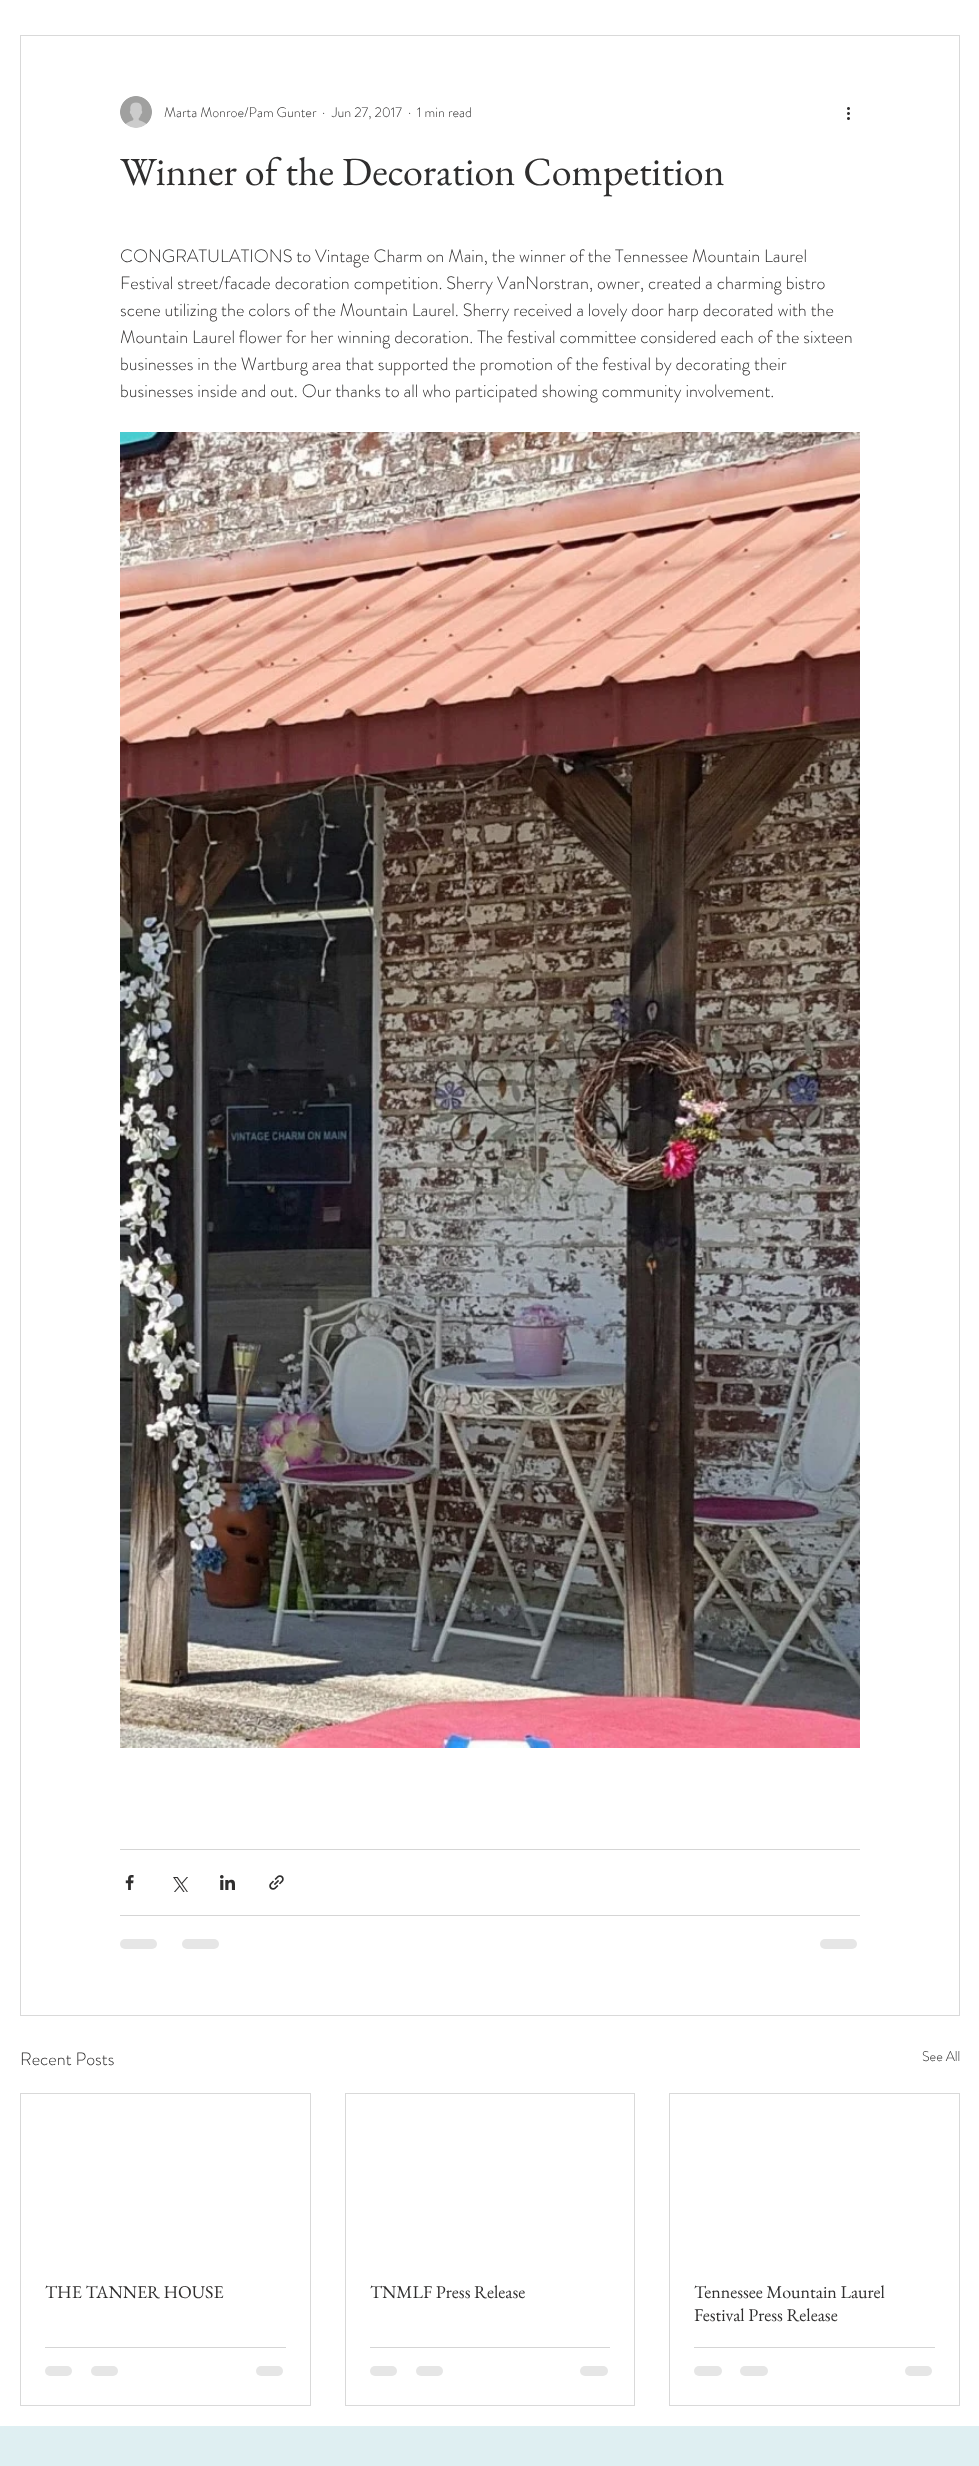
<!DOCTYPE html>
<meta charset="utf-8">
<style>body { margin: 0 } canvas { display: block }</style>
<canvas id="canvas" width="979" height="2466"></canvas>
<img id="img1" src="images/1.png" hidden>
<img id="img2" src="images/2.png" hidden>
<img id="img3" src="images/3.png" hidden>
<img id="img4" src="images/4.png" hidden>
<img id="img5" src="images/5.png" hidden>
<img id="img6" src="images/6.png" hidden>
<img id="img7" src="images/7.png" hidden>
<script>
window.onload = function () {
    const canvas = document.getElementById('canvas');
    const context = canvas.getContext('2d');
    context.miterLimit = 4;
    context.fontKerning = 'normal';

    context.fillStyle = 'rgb(223, 239, 242)';
    context.fillRect(0, 0, 979, 2466);
    context.fillStyle = 'rgb(255, 255, 255)';
    context.fillRect(0, 0, 979, 2426);
    context.strokeStyle = 'rgb(217, 217, 217)';
    context.strokeRect(20.5, 35.5, 939, 1980);
    context.drawImage(document.getElementById('img1'), 120, 96, 32, 32);
    context.drawImage(document.getElementById('img2'), 847, 107, 3, 13);
    context.drawImage(document.getElementById('img3'), 120, 432, 740, 1316);
    context.fillStyle = 'rgb(213, 213, 213)';
    context.fillRect(120, 1849, 740, 1);
    context.drawImage(document.getElementById('img4'), 125, 1875, 9, 15);
    context.drawImage(document.getElementById('img5'), 173, 1877, 15, 15);
    context.drawImage(document.getElementById('img6'), 220, 1875, 15, 15);
    context.drawImage(document.getElementById('img7'), 269, 1875, 15, 15);
    context.fillRect(120, 1915, 740, 1);
    context.fillStyle = 'rgb(230, 230, 230)';
    context.beginPath();
    context.roundRect(120, 1939, 37, 10, 5);
    context.fill();
    context.beginPath();
    context.roundRect(182, 1939, 37, 10, 5);
    context.fill();
    context.beginPath();
    context.roundRect(820, 1939, 37, 10, 5);
    context.fill();
    context.strokeRect(20.5, 2093.5, 290, 312);
    context.fillStyle = 'rgb(213, 213, 213)';
    context.fillRect(45, 2347, 241, 1);
    context.fillStyle = 'rgb(230, 230, 230)';
    context.beginPath();
    context.roundRect(45, 2366, 27, 10, 5);
    context.fill();
    context.beginPath();
    context.roundRect(91, 2366, 27, 10, 5);
    context.fill();
    context.beginPath();
    context.roundRect(256, 2366, 27, 10, 5);
    context.fill();
    context.strokeRect(345.5, 2093.5, 289, 312);
    context.fillStyle = 'rgb(213, 213, 213)';
    context.fillRect(370, 2347, 240, 1);
    context.fillStyle = 'rgb(230, 230, 230)';
    context.beginPath();
    context.roundRect(370, 2366, 27, 10, 5);
    context.fill();
    context.beginPath();
    context.roundRect(416, 2366, 27, 10, 5);
    context.fill();
    context.beginPath();
    context.roundRect(580, 2366, 28, 10, 5);
    context.fill();
    context.strokeRect(669.5, 2093.5, 290, 312);
    context.fillStyle = 'rgb(213, 213, 213)';
    context.fillRect(694, 2347, 241, 1);
    context.fillStyle = 'rgb(230, 230, 230)';
    context.beginPath();
    context.roundRect(694, 2366, 28, 10, 5);
    context.fill();
    context.beginPath();
    context.roundRect(740, 2366, 28, 10, 5);
    context.fill();
    context.beginPath();
    context.roundRect(905, 2366, 27, 10, 5);
    context.fill();
    context.font = '300 14px "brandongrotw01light"';
    context.fillStyle = 'rgb(47, 46, 46)';
    context.fillText('Marta Monroe/Pam Gunter', 164, 117);
    context.fillText('·', 322, 117);
    context.fillText('Jun 27, 2017', 332, 117);
    context.fillText('·', 408, 117);
    context.fillText('1 min read', 417, 117);
    context.font = '40px EB Garamond';
    context.fillText('Winner of the Decoration Competition', 120, 185);
    context.font = '300 18px "brandongrotw01light"';
    context.fillText('CONGRATULATIONS to Vintage Charm on Main, the winner of the Tennessee Mountain Laurel', 120, 262);
    context.fillText('Festival street/facade decoration competition. Sherry VanNorstran, owner, created a charming bistro', 120, 289);
    context.fillText('scene utilizing the colors of the Mountain Laurel. Sherry received a lovely door harp decorated with the', 120, 316);
    context.fillText('Mountain Laurel flower for her winning decoration. The festival committee considered each of the sixteen', 120, 343);
    context.fillText('businesses in the Wartburg area that supported the promotion of the festival by decorating their', 120, 370);
    context.fillText('businesses inside and out. Our thanks to all who participated showing community involvement.', 120, 397);
    context.fillText('Recent Posts', 20, 2065);
    context.font = '300 14px "brandongrotw01light"';
    context.fillText('See All', 922, 2061);
    context.font = '18px EB Garamond';
    context.fillText('THE TANNER HOUSE', 45, 2298);
    context.fillText('TNMLF Press Release', 370, 2298);
    context.fillText('Tennessee Mountain Laurel', 694, 2298);
    context.fillText('Festival Press Release', 694, 2321);
};
</script>
